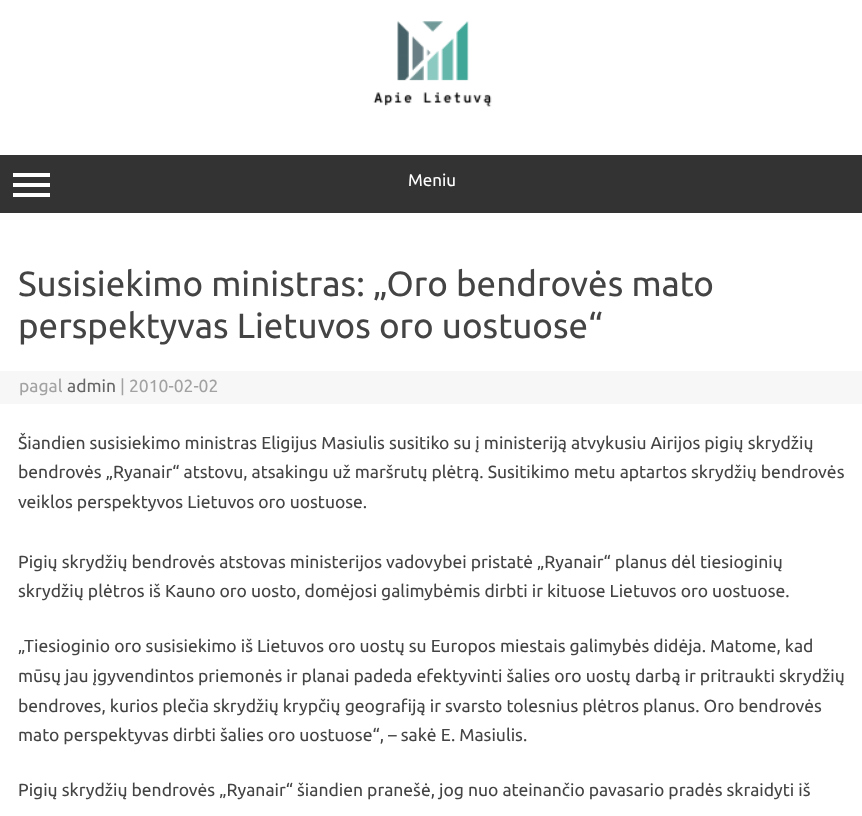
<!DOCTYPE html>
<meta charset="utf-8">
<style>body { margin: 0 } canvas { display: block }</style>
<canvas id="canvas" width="862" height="816"></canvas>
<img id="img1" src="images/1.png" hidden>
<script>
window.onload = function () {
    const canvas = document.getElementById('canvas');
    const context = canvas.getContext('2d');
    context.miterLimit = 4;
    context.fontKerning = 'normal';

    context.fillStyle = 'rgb(255, 255, 255)';
    context.fillRect(0, 0, 862, 816);
    context.drawImage(document.getElementById('img1'), 373, 21, 119, 86);
    context.fillStyle = 'rgb(51, 51, 51)';
    context.fillRect(0, 155, 862, 58);
    context.fillStyle = 'rgb(255, 255, 255)';
    context.fillRect(13, 173, 37, 4);
    context.fillRect(13, 183, 37, 4);
    context.fillRect(13, 193, 37, 4);
    context.fillStyle = 'rgb(247, 247, 247)';
    context.fillRect(0, 371, 862, 33);
    context.font = '17px Ubuntu';
    context.fillStyle = 'rgb(255, 255, 255)';
    context.fillText('Meniu', 408, 186);
    context.font = '35px Ubuntu';
    context.fillStyle = 'rgb(68, 68, 68)';
    context.fillText('Susisiekimo ministras: „Oro bendrovės mato', 18, 296);
    context.fillText('perspektyvas Lietuvos oro uostuose“', 18, 338);
    context.font = '17.5px Ubuntu';
    context.fillStyle = 'rgb(162, 162, 162)';
    context.fillText('pagal', 19, 392);
    context.fillStyle = 'rgb(102, 102, 102)';
    context.fillText('admin', 67, 392);
    context.fillStyle = 'rgb(162, 162, 162)';
    context.fillText('| 2010-02-02', 120, 392);
    context.fillStyle = 'rgb(68, 68, 68)';
    context.fillText('Šiandien susisiekimo ministras Eligijus Masiulis susitiko su į ministeriją atvykusiu Airijos pigių skrydžių', 18, 449);
    context.fillText('bendrovės „Ryanair“ atstovu, atsakingu už maršrutų plėtrą. Susitikimo metu aptartos skrydžių bendrovės', 18, 478);
    context.fillText('veiklos perspektyvos Lietuvos oro uostuose.', 18, 508);
    context.fillText('Pigių skrydžių bendrovės atstovas ministerijos vadovybei pristatė „Ryanair“ planus dėl tiesioginių', 18, 568);
    context.fillText('skrydžių plėtros iš Kauno oro uosto, domėjosi galimybėmis dirbti ir kituose Lietuvos oro uostuose.', 18, 597);
    context.fillText('„Tiesioginio oro susisiekimo iš Lietuvos oro uostų su Europos miestais galimybės didėja. Matome, kad', 18, 652);
    context.fillText('mūsų jau įgyvendintos priemonės ir planai padeda efektyvinti šalies oro uostų darbą ir pritraukti skrydžių', 18, 682);
    context.fillText('bendroves, kurios plečia skrydžių krypčių geografiją ir svarsto tolesnius plėtros planus. Oro bendrovės', 18, 712);
    context.fillText('mato perspektyvas dirbti šalies oro uostuose“, – sakė E. Masiulis.', 18, 741);
    context.fillText('Pigių skrydžių bendrovės „Ryanair“ šiandien pranešė, jog nuo ateinančio pavasario pradės skraidyti iš', 18, 796);
};
</script>
